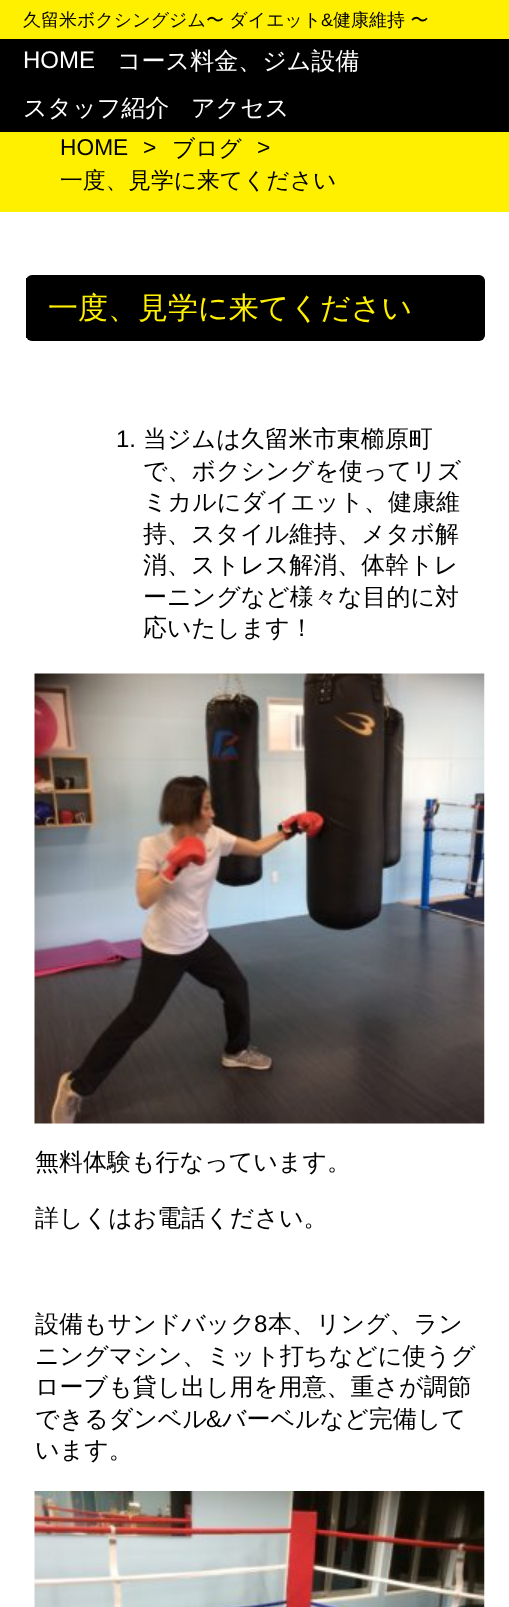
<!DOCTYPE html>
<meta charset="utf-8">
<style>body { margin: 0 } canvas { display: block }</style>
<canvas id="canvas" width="509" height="1607"></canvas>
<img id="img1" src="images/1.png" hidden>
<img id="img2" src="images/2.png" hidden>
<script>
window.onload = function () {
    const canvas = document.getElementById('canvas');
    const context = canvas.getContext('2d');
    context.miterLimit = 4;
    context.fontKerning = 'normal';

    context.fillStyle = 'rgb(255, 240, 0)';
    context.fillRect(0, 0, 509, 1607);
    context.fillStyle = 'rgb(0, 0, 0)';
    context.fillRect(0, 39, 509, 93);
    context.fillStyle = 'rgb(255, 255, 255)';
    context.fillRect(0, 212, 509, 1395);
    context.fillStyle = 'rgb(0, 0, 0)';
    context.beginPath();
    context.roundRect(26, 275, 459, 66, 6);
    context.fill();
    context.fillRect(26, 278, 1, 60);
    context.drawImage(document.getElementById('img1'), 34, 673, 451, 451);
    context.drawImage(document.getElementById('img2'), 34, 1491, 451, 116);
    context.font = '500 18px WenQuanYi Zen Hei';
    context.fillText('久留米ボクシングジム〜 ダイエット', 23, 26);
    context.font = '18px Liberation Sans';
    context.fillText('&', 321, 26);
    context.font = '500 18px WenQuanYi Zen Hei';
    context.fillText('健康維持 〜', 333, 26);
    context.font = '24px Liberation Sans';
    context.fillStyle = 'rgb(255, 255, 255)';
    context.fillText('HOME', 23, 68);
    context.font = '500 24px WenQuanYi Zen Hei';
    context.fillText('コース料金、ジム設備', 117, 69);
    context.fillText('スタッフ紹介', 23, 116);
    context.fillText('アクセス', 191, 116);
    context.font = '22.75px Liberation Sans';
    context.fillStyle = 'rgb(0, 0, 0)';
    context.fillText('HOME', 60, 155);
    context.fillText('>', 143, 155);
    context.font = '500 22.75px WenQuanYi Zen Hei';
    context.fillText('ブログ', 172, 156);
    context.font = '22.75px Liberation Sans';
    context.fillText('>', 257, 155);
    context.font = '500 22.75px WenQuanYi Zen Hei';
    context.fillText('一度、見学に来てください', 60, 188);
    context.font = '500 30px WenQuanYi Zen Hei';
    context.fillStyle = 'rgb(255, 240, 0)';
    context.fillText('一度、見学に来てください', 48, 318);
    context.font = '24px Liberation Sans';
    context.fillStyle = 'rgb(0, 0, 0)';
    context.fillText('1.', 116, 447);
    context.font = '500 24px WenQuanYi Zen Hei';
    context.fillText('当ジムは久留米市東櫛原町', 143, 447);
    context.fillText('で、ボクシングを使ってリズ', 143, 479);
    context.fillText('ミカルにダイエット、健康維', 143, 510);
    context.fillText('持、スタイル維持、メタボ解', 143, 542);
    context.fillText('消、ストレス解消、体幹トレ', 143, 573);
    context.fillText('ーニングなど様々な目的に対', 143, 605);
    context.fillText('応いたします！', 143, 636);
    context.fillText('無料体験も行なっています。', 35, 1170);
    context.fillText('詳しくはお電話ください。', 35, 1226);
    context.fillText('設備もサンドバック', 35, 1332);
    context.font = '24px Liberation Sans';
    context.fillText('8', 254, 1332);
    context.font = '500 24px WenQuanYi Zen Hei';
    context.fillText('本、リング、ラン', 268, 1332);
    context.fillText('ニングマシン、ミット打ちなどに使うグ', 35, 1364);
    context.fillText('ローブも貸し出し用を用意、重さが調節', 35, 1395);
    context.fillText('できるダンベル', 35, 1427);
    context.font = '24px Liberation Sans';
    context.fillText('&', 206, 1427);
    context.font = '500 24px WenQuanYi Zen Hei';
    context.fillText('バーベルなど完備して', 222, 1427);
    context.fillText('います。', 35, 1458);
};
</script>
